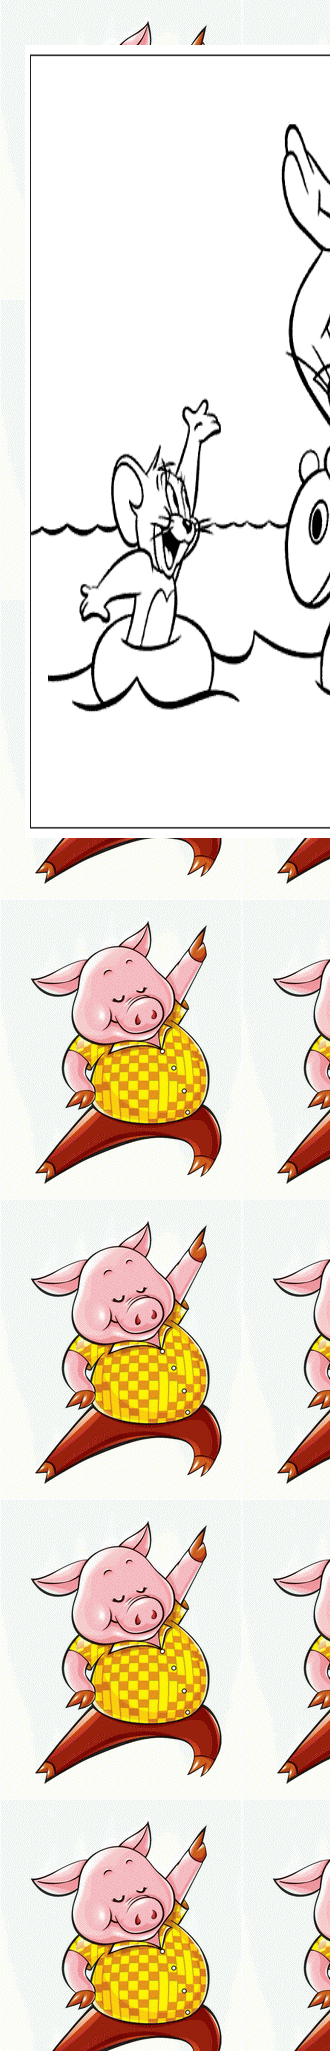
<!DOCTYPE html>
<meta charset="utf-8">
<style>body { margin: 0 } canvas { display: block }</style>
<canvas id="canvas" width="330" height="2051"></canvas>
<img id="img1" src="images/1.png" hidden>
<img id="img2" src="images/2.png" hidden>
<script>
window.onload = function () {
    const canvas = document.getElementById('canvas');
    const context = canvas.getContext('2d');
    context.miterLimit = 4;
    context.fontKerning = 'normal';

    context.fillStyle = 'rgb(255, 255, 255)';
    context.fillRect(0, 0, 330, 2051);
    context.drawImage(document.getElementById('img1'), 0, 0, 330, 2051);
    context.drawImage(document.getElementById('img2'), 25, 45, 305, 793);
};
</script>
